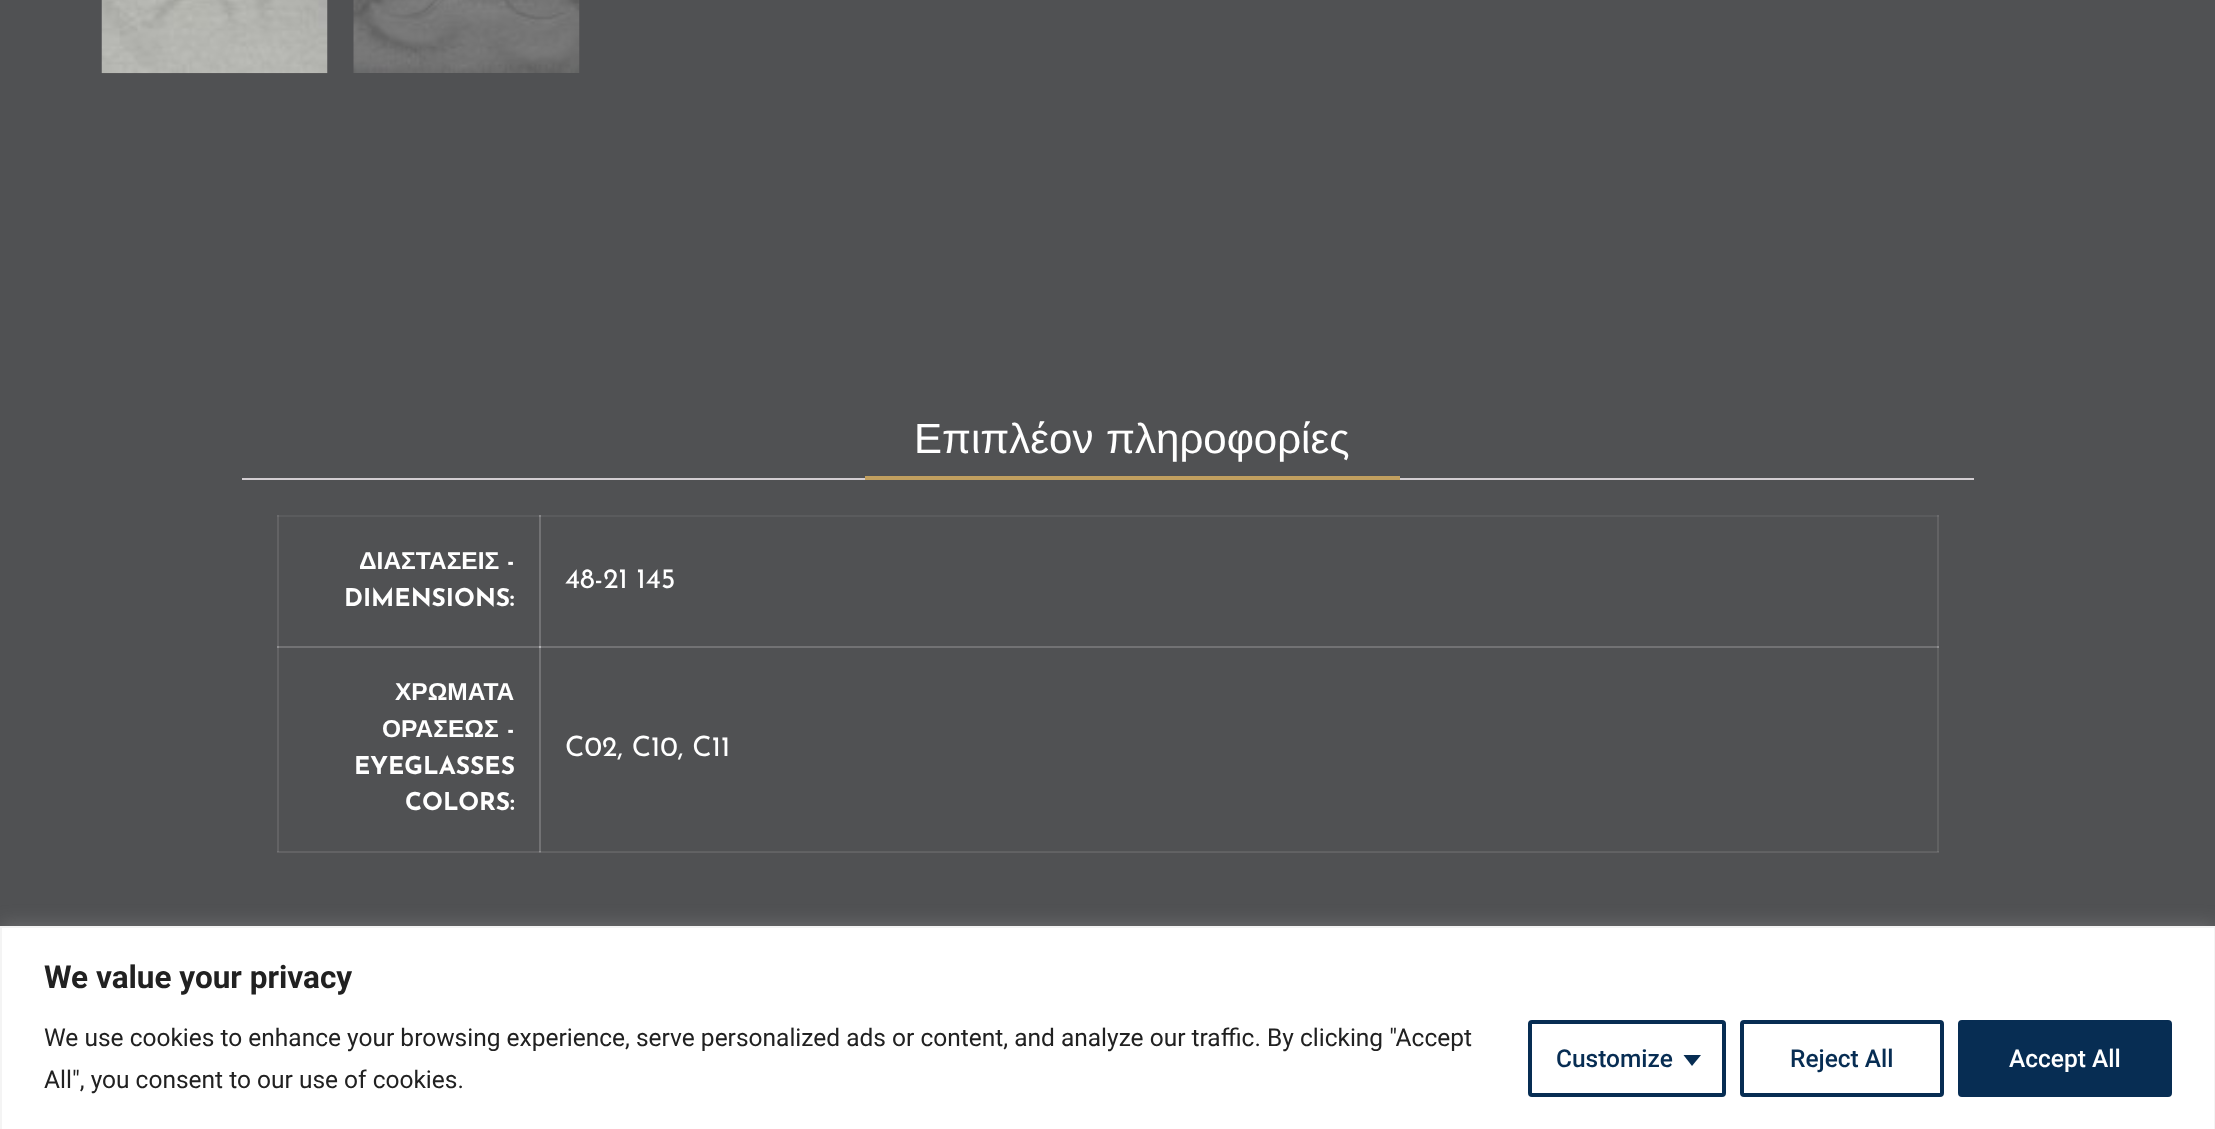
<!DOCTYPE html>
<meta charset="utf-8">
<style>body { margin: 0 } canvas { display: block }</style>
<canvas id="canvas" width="2215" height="1129"></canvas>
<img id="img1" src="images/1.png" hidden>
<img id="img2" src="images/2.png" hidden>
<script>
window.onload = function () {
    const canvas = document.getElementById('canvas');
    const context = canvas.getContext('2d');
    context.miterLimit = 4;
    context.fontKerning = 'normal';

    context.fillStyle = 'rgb(80, 81, 83)';
    context.fillRect(0, 0, 2215, 1129);
    context.fillStyle = 'rgb(98, 98, 100)';
    context.fillRect(277, 515, 2, 337);
    context.fillStyle = 'rgb(114, 114, 116)';
    context.fillRect(539, 515, 2, 133);
    context.fillStyle = 'rgb(98, 98, 100)';
    context.fillRect(1937, 515, 2, 133);
    context.fillRect(277, 851, 264, 2);
    context.fillStyle = 'rgb(114, 114, 116)';
    context.fillRect(277, 851, 2, 1);
    context.fillRect(277, 646, 264, 2);
    context.fillStyle = 'rgb(141, 141, 143)';
    context.fillRect(277, 646, 2, 2);
    context.fillStyle = 'rgb(114, 114, 116)';
    context.fillRect(539, 646, 2, 206);
    context.fillStyle = 'rgb(98, 98, 100)';
    context.fillRect(539, 852, 1400, 1);
    context.fillStyle = 'rgb(114, 114, 116)';
    context.fillRect(539, 852, 2, 1);
    context.fillStyle = 'rgb(141, 141, 143)';
    context.fillRect(539, 851, 2, 1);
    context.drawImage(document.getElementById('img1'), 101, 0, 227, 74);
    context.drawImage(document.getElementById('img2'), 353, 0, 227, 73);
    context.fillStyle = 'rgb(211, 206, 210)';
    context.fillRect(242, 478, 1732, 2);
    context.fillStyle = 'rgb(193, 159, 95)';
    context.fillRect(865, 476, 535, 4);
    context.fillStyle = 'rgb(90, 91, 93)';
    context.fillRect(277, 515, 1662, 2);
    context.fillStyle = 'rgb(107, 107, 109)';
    context.fillRect(277, 515, 2, 2);
    context.fillStyle = 'rgb(135, 135, 137)';
    context.fillRect(539, 515, 2, 2);
    context.fillStyle = 'rgb(107, 107, 109)';
    context.fillRect(1937, 515, 2, 2);
    context.fillStyle = 'rgb(96, 97, 98)';
    context.fillRect(541, 851, 1398, 1);
    context.fillRect(1937, 648, 2, 204);
    context.fillStyle = 'rgb(112, 113, 114)';
    context.fillRect(1937, 851, 2, 1);
    context.fillStyle = 'rgb(114, 114, 116)';
    context.fillRect(539, 646, 1400, 2);
    context.fillStyle = 'rgb(179, 179, 181)';
    context.fillRect(539, 646, 2, 2);
    context.fillStyle = 'rgb(141, 141, 143)';
    context.fillRect(1937, 646, 2, 2);
    context.fillStyle = 'rgba(172, 171, 171, 0.3)';
    context.filter = 'blur(9px)';
    context.beginPath();
    context.rect(0, 924, 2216, 205);
    context.fill();
    context.filter = 'none';
    context.fillStyle = 'rgb(255, 255, 255)';
    context.beginPath();
    context.rect(1, 927, 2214, 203);
    context.fill();
    context.strokeStyle = 'rgb(244, 244, 244)';
    context.lineWidth = 2;
    context.stroke();
    context.beginPath();
    context.roundRect(1530, 1022, 194, 73, 2);
    context.strokeStyle = 'rgb(7, 45, 83)';
    context.lineWidth = 4;
    context.stroke();
    context.fillStyle = 'rgb(7, 45, 83)';
    context.beginPath();
    context.moveTo(1683.5, 1055);
    context.lineTo(1701, 1055);
    context.lineTo(1692, 1066);
    context.closePath();
    context.fill();
    context.beginPath();
    context.roundRect(1742, 1022, 200, 73, 2);
    context.stroke();
    context.beginPath();
    context.roundRect(1960, 1022, 210, 73, 2);
    context.fill();
    context.stroke();
    context.wordSpacing = '1px';
    context.font = '42px Liberation Sans';
    context.fillStyle = 'rgb(255, 255, 255)';
    context.fillText('Επιπλέον πληροφορίες', 914, 453);
    context.wordSpacing = '0px';
    context.font = 'bold 24.5px Liberation Sans';
    context.fillText('ΔΙΑΣΤΑΣΕΙΣ', 359, 569);
    context.font = 'bold 24.5px Josefin Sans';
    context.fillText('-', 507, 569);
    context.fillText('DIMENSIONS:', 344, 606);
    context.font = '28px Josefin Sans';
    context.fillText('48-21 145', 565, 588);
    context.font = 'bold 24.5px Liberation Sans';
    context.fillText('ΧΡΩΜΑΤΑ', 395, 700);
    context.fillText('ΟΡΑΣΕΩΣ', 382, 737);
    context.font = 'bold 24.5px Josefin Sans';
    context.fillText('-', 507, 737);
    context.fillText('EYEGLASSES', 354, 774);
    context.fillText('COLORS:', 405, 810);
    context.font = '28px Josefin Sans';
    context.fillText('C02, C10, C11', 565, 756);
    context.font = 'bold 31.5px Roboto';
    context.fillStyle = 'rgb(33, 33, 33)';
    context.fillText('We value your privacy', 44, 988);
    context.font = '24.5px Roboto';
    context.fillText('We use cookies to enhance your browsing experience, serve personalized ads or content, and analyze our traffic. By clicking "Accept', 44, 1046);
    context.fillText('All", you consent to our use of cookies.', 44, 1088);
    context.font = '500 24.5px Roboto';
    context.fillStyle = 'rgb(7, 45, 83)';
    context.fillText('Customize', 1556, 1067);
    context.fillText('Reject All', 1790, 1067);
    context.fillStyle = 'rgb(255, 255, 255)';
    context.fillText('Accept All', 2009, 1067);
};
</script>
